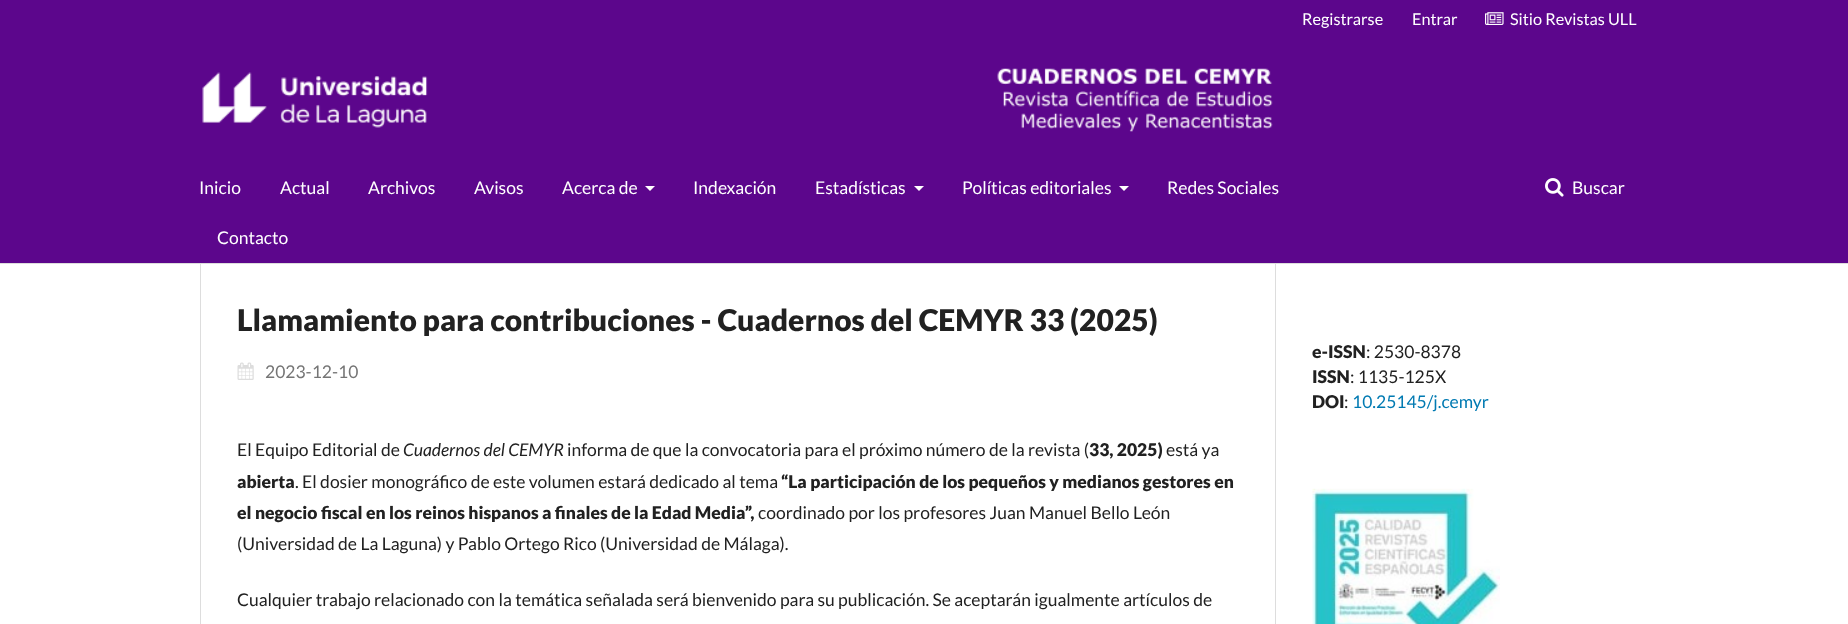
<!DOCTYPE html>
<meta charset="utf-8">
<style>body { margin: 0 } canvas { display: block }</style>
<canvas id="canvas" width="1848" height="624"></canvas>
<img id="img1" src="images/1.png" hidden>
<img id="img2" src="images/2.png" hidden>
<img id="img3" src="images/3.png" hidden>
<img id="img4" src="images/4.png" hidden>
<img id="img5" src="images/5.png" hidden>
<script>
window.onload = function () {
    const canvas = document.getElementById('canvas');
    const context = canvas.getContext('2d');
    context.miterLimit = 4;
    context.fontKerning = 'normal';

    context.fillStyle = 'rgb(255, 255, 255)';
    context.fillRect(0, 0, 1848, 624);
    context.fillStyle = 'rgb(92, 6, 140)';
    context.fillRect(0, 0, 1848, 263);
    context.fillStyle = 'rgb(221, 221, 221)';
    context.fillRect(0, 263, 1848, 1);
    context.drawImage(document.getElementById('img1'), 1485, 12, 19, 13);
    context.drawImage(document.getElementById('img2'), 202, 68, 1071, 64);
    context.fillStyle = 'rgb(255, 255, 255)';
    context.beginPath();
    context.moveTo(645, 186);
    context.lineTo(655, 186);
    context.lineTo(650, 191);
    context.closePath();
    context.fill();
    context.beginPath();
    context.moveTo(914, 186);
    context.lineTo(924, 186);
    context.lineTo(919, 191);
    context.closePath();
    context.fill();
    context.beginPath();
    context.moveTo(1119, 186);
    context.lineTo(1129, 186);
    context.lineTo(1124, 191);
    context.closePath();
    context.fill();
    context.drawImage(document.getElementById('img3'), 1545, 178, 19, 19);
    context.fillStyle = 'rgb(221, 221, 221)';
    context.fillRect(200, 264, 1, 360);
    context.drawImage(document.getElementById('img4'), 237, 362, 17, 18);
    context.fillRect(1275, 264, 1, 360);
    context.drawImage(document.getElementById('img5'), 1312, 488, 188, 136);
    context.font = '16.25px Lato';
    context.fillStyle = 'rgb(255, 255, 255)';
    context.fillText('Registrarse', 1302, 25);
    context.fillText('Entrar', 1412, 25);
    context.fillText('Sitio Revistas ULL', 1510, 25);
    context.font = '17.5px Lato';
    context.fillText('Inicio', 199, 194);
    context.fillText('Actual', 280, 194);
    context.fillText('Archivos', 368, 194);
    context.fillText('Avisos', 474, 194);
    context.fillText('Acerca de', 562, 194);
    context.fillText('Indexación', 693, 194);
    context.fillText('Estadísticas', 815, 194);
    context.fillText('Políticas editoriales', 962, 194);
    context.fillText('Redes Sociales', 1167, 194);
    context.fillText('Contacto', 217, 244);
    context.fillText('Buscar', 1572, 194);
    context.font = '900 30px Lato';
    context.fillStyle = 'rgb(33, 33, 33)';
    context.fillText('Llamamiento para contribuciones - Cuadernos del CEMYR 33 (2025)', 237, 331);
    context.font = '17.5px Lato';
    context.fillStyle = 'rgb(117, 117, 117)';
    context.fillText('2023-12-10', 265, 378);
    context.fillStyle = 'rgb(33, 33, 33)';
    context.fillText('El Equipo Editorial de', 237, 456);
    context.font = 'italic 17.5px Lato';
    context.fillText('Cuadernos del CEMYR', 403, 456);
    context.font = '17.5px Lato';
    context.fillText('informa de que la convocatoria para el próximo número de la revista (', 567, 456);
    context.font = '900 17.5px Lato';
    context.fillText('33, 2025)', 1089, 456);
    context.font = '17.5px Lato';
    context.fillText('está ya', 1166, 456);
    context.font = '900 17.5px Lato';
    context.fillText('abierta', 237, 488);
    context.font = '17.5px Lato';
    context.fillText('. El dosier monográfico de este volumen estará dedicado al tema', 295, 488);
    context.font = '900 17.5px Lato';
    context.fillText('“La participación de los pequeños y medianos gestores en', 781, 488);
    context.fillText('el negocio fiscal en los reinos hispanos a finales de la Edad Media”,', 237, 519);
    context.font = '17.5px Lato';
    context.fillText('coordinado por los profesores Juan Manuel Bello León', 758, 519);
    context.fillText('(Universidad de La Laguna) y Pablo Ortego Rico (Universidad de Málaga).', 237, 550);
    context.fillText('Cualquier trabajo relacionado con la temática señalada será bienvenido para su publicación. Se aceptarán igualmente artículos de', 237, 606);
    context.font = '900 17.5px Lato';
    context.fillText('e-ISSN', 1312, 358);
    context.font = '17.5px Lato';
    context.fillText(': 2530-8378', 1366, 358);
    context.font = '900 17.5px Lato';
    context.fillText('ISSN', 1312, 383);
    context.font = '17.5px Lato';
    context.fillText(': 1135-125X', 1350, 383);
    context.font = '900 17.5px Lato';
    context.fillText('DOI', 1312, 408);
    context.font = '17.5px Lato';
    context.fillText(':', 1344, 408);
    context.fillStyle = 'rgb(0, 122, 178)';
    context.fillText('10.25145/j.cemyr', 1352, 408);
};
</script>
